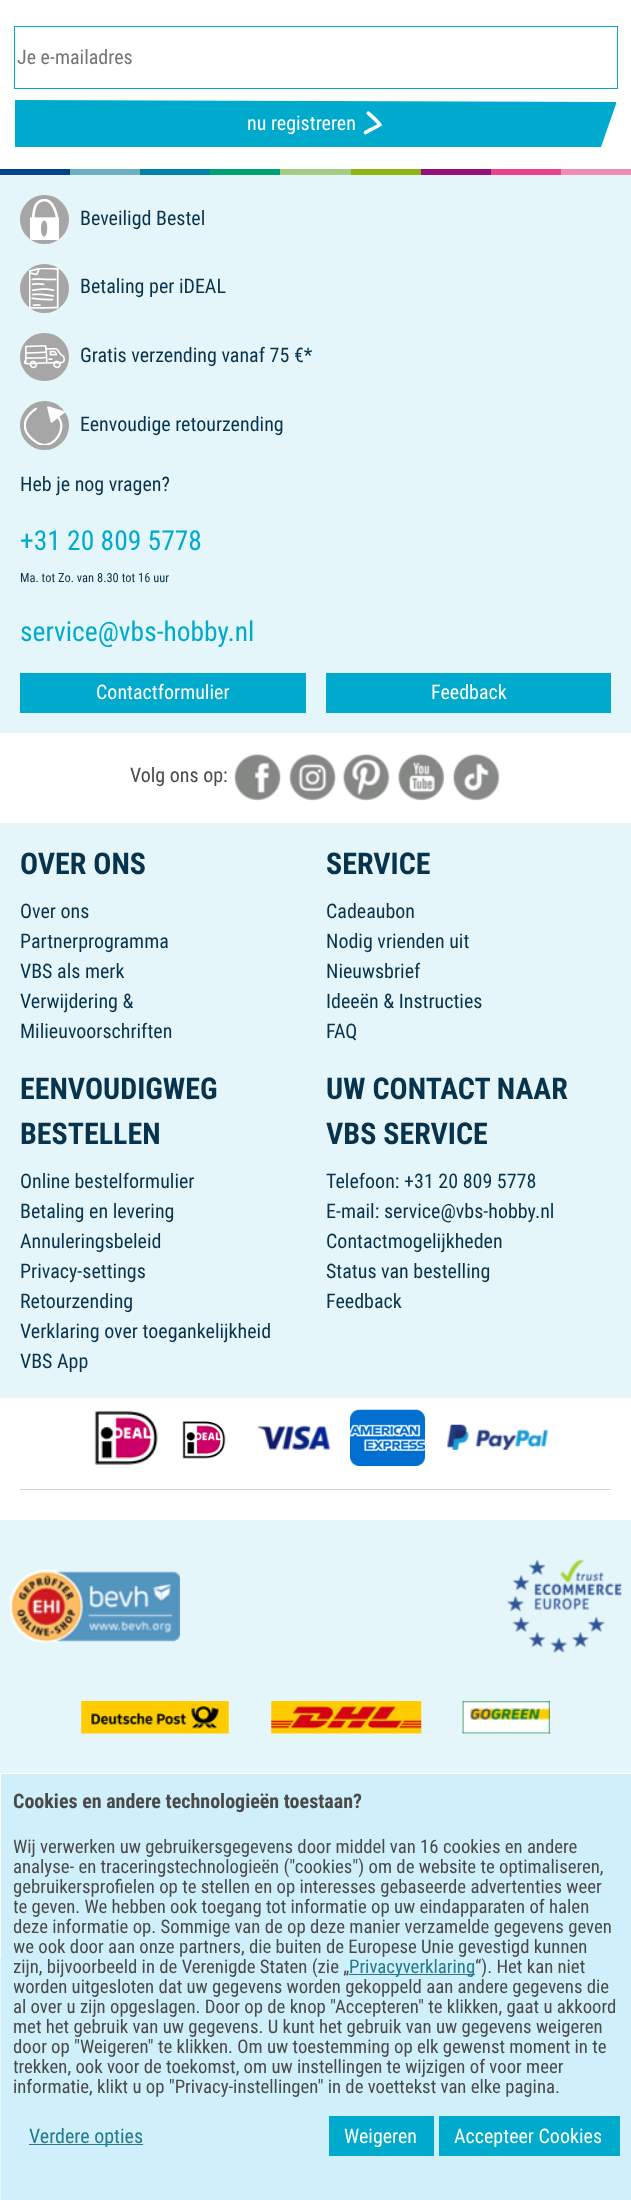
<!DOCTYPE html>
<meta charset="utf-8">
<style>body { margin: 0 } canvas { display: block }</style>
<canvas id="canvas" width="631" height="2200"></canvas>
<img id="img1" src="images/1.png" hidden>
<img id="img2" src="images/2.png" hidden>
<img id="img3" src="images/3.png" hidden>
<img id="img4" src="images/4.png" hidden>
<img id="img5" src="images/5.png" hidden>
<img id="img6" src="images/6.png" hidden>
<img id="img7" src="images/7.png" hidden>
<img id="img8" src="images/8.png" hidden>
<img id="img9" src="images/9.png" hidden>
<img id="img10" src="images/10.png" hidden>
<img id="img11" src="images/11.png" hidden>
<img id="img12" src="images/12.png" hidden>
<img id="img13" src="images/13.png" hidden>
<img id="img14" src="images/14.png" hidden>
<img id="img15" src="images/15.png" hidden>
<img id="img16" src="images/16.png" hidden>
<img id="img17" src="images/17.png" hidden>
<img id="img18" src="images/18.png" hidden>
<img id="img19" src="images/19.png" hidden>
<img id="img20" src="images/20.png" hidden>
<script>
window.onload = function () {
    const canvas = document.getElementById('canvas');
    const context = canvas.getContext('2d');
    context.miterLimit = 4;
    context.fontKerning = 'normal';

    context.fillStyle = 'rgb(255, 255, 255)';
    context.fillRect(0, 0, 631, 2200);
    context.strokeStyle = 'rgb(0, 170, 205)';
    context.strokeRect(14.5, 26.5, 603, 62);
    context.fillStyle = 'rgb(0, 170, 205)';
    context.beginPath();
    context.moveTo(15, 100);
    context.lineTo(616, 102);
    context.lineTo(616, 104);
    context.lineTo(601, 147);
    context.lineTo(15, 147);
    context.closePath();
    context.fill();
    context.drawImage(document.getElementById('img1'), 363, 111, 19, 24);
    context.fillStyle = 'rgb(0, 70, 135)';
    context.fillRect(0, 169, 70, 6);
    context.fillStyle = 'rgb(109, 176, 193)';
    context.fillRect(70, 169, 70, 6);
    context.fillStyle = 'rgb(0, 130, 164)';
    context.fillRect(140, 169, 70, 6);
    context.fillStyle = 'rgb(0, 161, 117)';
    context.fillRect(210, 169, 70, 6);
    context.fillStyle = 'rgb(165, 204, 130)';
    context.fillRect(280, 169, 71, 6);
    context.fillStyle = 'rgb(140, 182, 18)';
    context.fillRect(351, 169, 70, 6);
    context.fillStyle = 'rgb(147, 17, 126)';
    context.fillRect(421, 169, 70, 6);
    context.fillStyle = 'rgb(231, 69, 135)';
    context.fillRect(491, 169, 70, 6);
    context.fillStyle = 'rgb(238, 140, 178)';
    context.fillRect(561, 169, 70, 6);
    context.fillStyle = 'rgb(229, 246, 250)';
    context.fillRect(0, 175, 631, 558);
    context.fillStyle = 'rgb(166, 166, 166)';
    context.beginPath();
    context.arc(44.5, 219.5, 24.5, 0, 2 * Math.PI);
    context.fill();
    context.drawImage(document.getElementById('img2'), 30, 199, 29, 41);
    context.beginPath();
    context.arc(44.5, 288.5, 24.5, 0, 2 * Math.PI);
    context.fill();
    context.drawImage(document.getElementById('img3'), 29, 268, 30, 41);
    context.beginPath();
    context.roundRect(20, 333, 49, 48, 24);
    context.fill();
    context.drawImage(document.getElementById('img4'), 24, 345, 41, 24);
    context.beginPath();
    context.arc(44.5, 425.5, 24.5, 0, 2 * Math.PI);
    context.fill();
    context.drawImage(document.getElementById('img5'), 24, 406, 41, 39);
    context.fillStyle = 'rgb(0, 170, 205)';
    context.fillRect(20, 673, 286, 40);
    context.fillRect(326, 673, 285, 40);
    context.drawImage(document.getElementById('img6'), 233, 753, 48, 48);
    context.drawImage(document.getElementById('img7'), 288, 753, 48, 48);
    context.drawImage(document.getElementById('img8'), 342, 753, 48, 48);
    context.drawImage(document.getElementById('img9'), 397, 753, 48, 48);
    context.drawImage(document.getElementById('img10'), 452, 753, 48, 48);
    context.fillStyle = 'rgb(229, 246, 250)';
    context.fillRect(0, 823, 631, 575);
    context.drawImage(document.getElementById('img11'), 94, 1410, 64, 55);
    context.drawImage(document.getElementById('img12'), 182, 1421, 44, 38);
    context.drawImage(document.getElementById('img13'), 257, 1425, 74, 25);
    context.drawImage(document.getElementById('img14'), 350, 1409, 75, 57);
    context.drawImage(document.getElementById('img15'), 447, 1424, 101, 26);
    context.fillStyle = 'rgb(210, 210, 210)';
    context.fillRect(20, 1489, 591, 1);
    context.fillStyle = 'rgb(229, 246, 250)';
    context.fillRect(0, 1520, 631, 253);
    context.drawImage(document.getElementById('img16'), 10, 1569, 170, 74);
    context.drawImage(document.getElementById('img17'), 507, 1559, 115, 94);
    context.drawImage(document.getElementById('img18'), 81, 1701, 148, 33);
    context.drawImage(document.getElementById('img19'), 271, 1701, 151, 33);
    context.drawImage(document.getElementById('img20'), 462, 1701, 88, 33);
    context.fillRect(0, 1958, 1, 242);
    context.fillStyle = 'rgb(207, 239, 251)';
    context.fillRect(1, 1774, 630, 426);
    context.fillStyle = 'rgb(37, 122, 139)';
    context.fillRect(349, 1974, 126, 1);
    context.fillRect(29, 2144, 114, 1);
    context.fillStyle = 'rgb(0, 170, 205)';
    context.fillRect(329, 2116, 105, 40);
    context.fillRect(439, 2116, 181, 40);
    context.font = '20px Roboto Condensed';
    context.fillStyle = 'rgb(117, 117, 117)';
    context.fillText('Je e-mailadres', 17, 64);
    context.fillStyle = 'rgb(255, 255, 255)';
    context.fillText('nu registreren', 247, 130);
    context.fillStyle = 'rgb(8, 51, 77)';
    context.fillText('Beveiligd Bestel', 80, 225);
    context.fillText('Betaling per iDEAL', 80, 293);
    context.fillText('Gratis verzending vanaf 75 €*', 80, 362);
    context.fillText('Eenvoudige retourzending', 80, 431);
    context.fillText('Heb je nog vragen?', 20, 491);
    context.font = '27.5px Roboto Condensed';
    context.fillStyle = 'rgb(0, 170, 205)';
    context.fillText('+31 20 809 5778', 20, 550);
    context.font = '12.5px Roboto Condensed';
    context.fillStyle = 'rgb(8, 51, 77)';
    context.fillText('Ma. tot Zo. van 8.30 tot 16 uur', 20, 582);
    context.font = '27.5px Roboto Condensed';
    context.fillStyle = 'rgb(0, 170, 205)';
    context.fillText('service@vbs-hobby.nl', 20, 641);
    context.font = '20px Roboto Condensed';
    context.fillStyle = 'rgb(255, 255, 255)';
    context.fillText('Contactformulier', 96, 699);
    context.fillText('Feedback', 431, 699);
    context.fillStyle = 'rgb(74, 74, 73)';
    context.fillText('Volg ons op:', 130, 782);
    context.font = 'bold 30px Roboto Condensed';
    context.fillStyle = 'rgb(8, 51, 77)';
    context.fillText('OVER ONS', 20, 874);
    context.font = '20px Roboto Condensed';
    context.fillText('Over ons', 20, 918);
    context.fillText('Partnerprogramma', 20, 948);
    context.fillText('VBS als merk', 20, 978);
    context.fillText('Verwijdering &', 20, 1008);
    context.fillText('Milieuvoorschriften', 20, 1038);
    context.font = 'bold 30px Roboto Condensed';
    context.fillText('SERVICE', 326, 874);
    context.font = '20px Roboto Condensed';
    context.fillText('Cadeaubon', 326, 918);
    context.fillText('Nodig vrienden uit', 326, 948);
    context.fillText('Nieuwsbrief', 326, 978);
    context.fillText('Ideeën & Instructies', 326, 1008);
    context.fillText('FAQ', 326, 1038);
    context.font = 'bold 30px Roboto Condensed';
    context.fillText('EENVOUDIGWEG', 20, 1099);
    context.fillText('BESTELLEN', 20, 1144);
    context.font = '20px Roboto Condensed';
    context.fillText('Online bestelformulier', 20, 1188);
    context.fillText('Betaling en levering', 20, 1218);
    context.fillText('Annuleringsbeleid', 20, 1248);
    context.fillText('Privacy-settings', 20, 1278);
    context.fillText('Retourzending', 20, 1308);
    context.fillText('Verklaring over toegankelijkheid', 20, 1338);
    context.fillText('VBS App', 20, 1368);
    context.font = 'bold 30px Roboto Condensed';
    context.fillText('UW CONTACT NAAR', 326, 1099);
    context.fillText('VBS SERVICE', 326, 1144);
    context.font = '20px Roboto Condensed';
    context.fillText('Telefoon: +31 20 809 5778', 326, 1188);
    context.fillText('E-mail: service@vbs-hobby.nl', 326, 1218);
    context.fillText('Contactmogelijkheden', 326, 1248);
    context.fillText('Status van bestelling', 326, 1278);
    context.fillText('Feedback', 326, 1308);
    context.save();
    context.beginPath();
    context.rect(14, 1786, 606, 370);
    context.clip();
    context.font = 'bold 20px Roboto Condensed';
    context.fillStyle = 'rgb(74, 74, 73)';
    context.fillText('Cookies en andere technologieën toestaan?', 13, 1808);
    context.font = '18.75px Roboto Condensed';
    context.fillText('Wij verwerken uw gebruikersgegevens door middel van 16 cookies en andere', 13, 1853);
    context.fillText('analyse- en traceringstechnologieën ("cookies") om de website te optimaliseren,', 13, 1873);
    context.fillText('gebruikersprofielen op te stellen en op interesses gebaseerde advertenties weer', 13, 1893);
    context.fillText('te geven. We hebben ook toegang tot informatie op uw eindapparaten of halen', 13, 1913);
    context.fillText('deze informatie op. Sommige van de op deze manier verzamelde gegevens geven', 13, 1933);
    context.fillText('we ook door aan onze partners, die buiten de Europese Unie gevestigd kunnen', 13, 1953);
    context.fillText('zijn, bijvoorbeeld in de Verenigde Staten (zie „', 13, 1973);
    context.restore();
    context.font = '18.75px Roboto Condensed';
    context.fillStyle = 'rgb(37, 122, 139)';
    context.fillText('Privacyverklaring', 349, 1973);
    context.fillStyle = 'rgb(74, 74, 73)';
    context.fillText('“). Het kan niet', 475, 1973);
    context.save();
    context.beginPath();
    context.rect(14, 1786, 606, 370);
    context.clip();
    context.fillText('worden uitgesloten dat uw gegevens worden gekoppeld aan andere gegevens die', 13, 1993);
    context.fillText('al over u zijn opgeslagen. Door op de knop "Accepteren" te klikken, gaat u akkoord', 13, 2013);
    context.fillText('met het gebruik van uw gegevens. U kunt het gebruik van uw gegevens weigeren', 13, 2033);
    context.fillText('door op "Weigeren" te klikken. Om uw toestemming op elk gewenst moment in te', 13, 2053);
    context.fillText('trekken, ook voor de toekomst, om uw instellingen te wijzigen of voor meer', 13, 2073);
    context.fillText('informatie, klikt u op "Privacy-instellingen" in de voettekst van elke pagina.', 13, 2093);
    context.restore();
    context.font = '20px Roboto Condensed';
    context.fillStyle = 'rgb(37, 122, 139)';
    context.fillText('Verdere opties', 29, 2143);
    context.fillStyle = 'rgb(255, 255, 255)';
    context.fillText('Weigeren', 344, 2143);
    context.fillText('Accepteer Cookies', 454, 2143);
};
</script>
